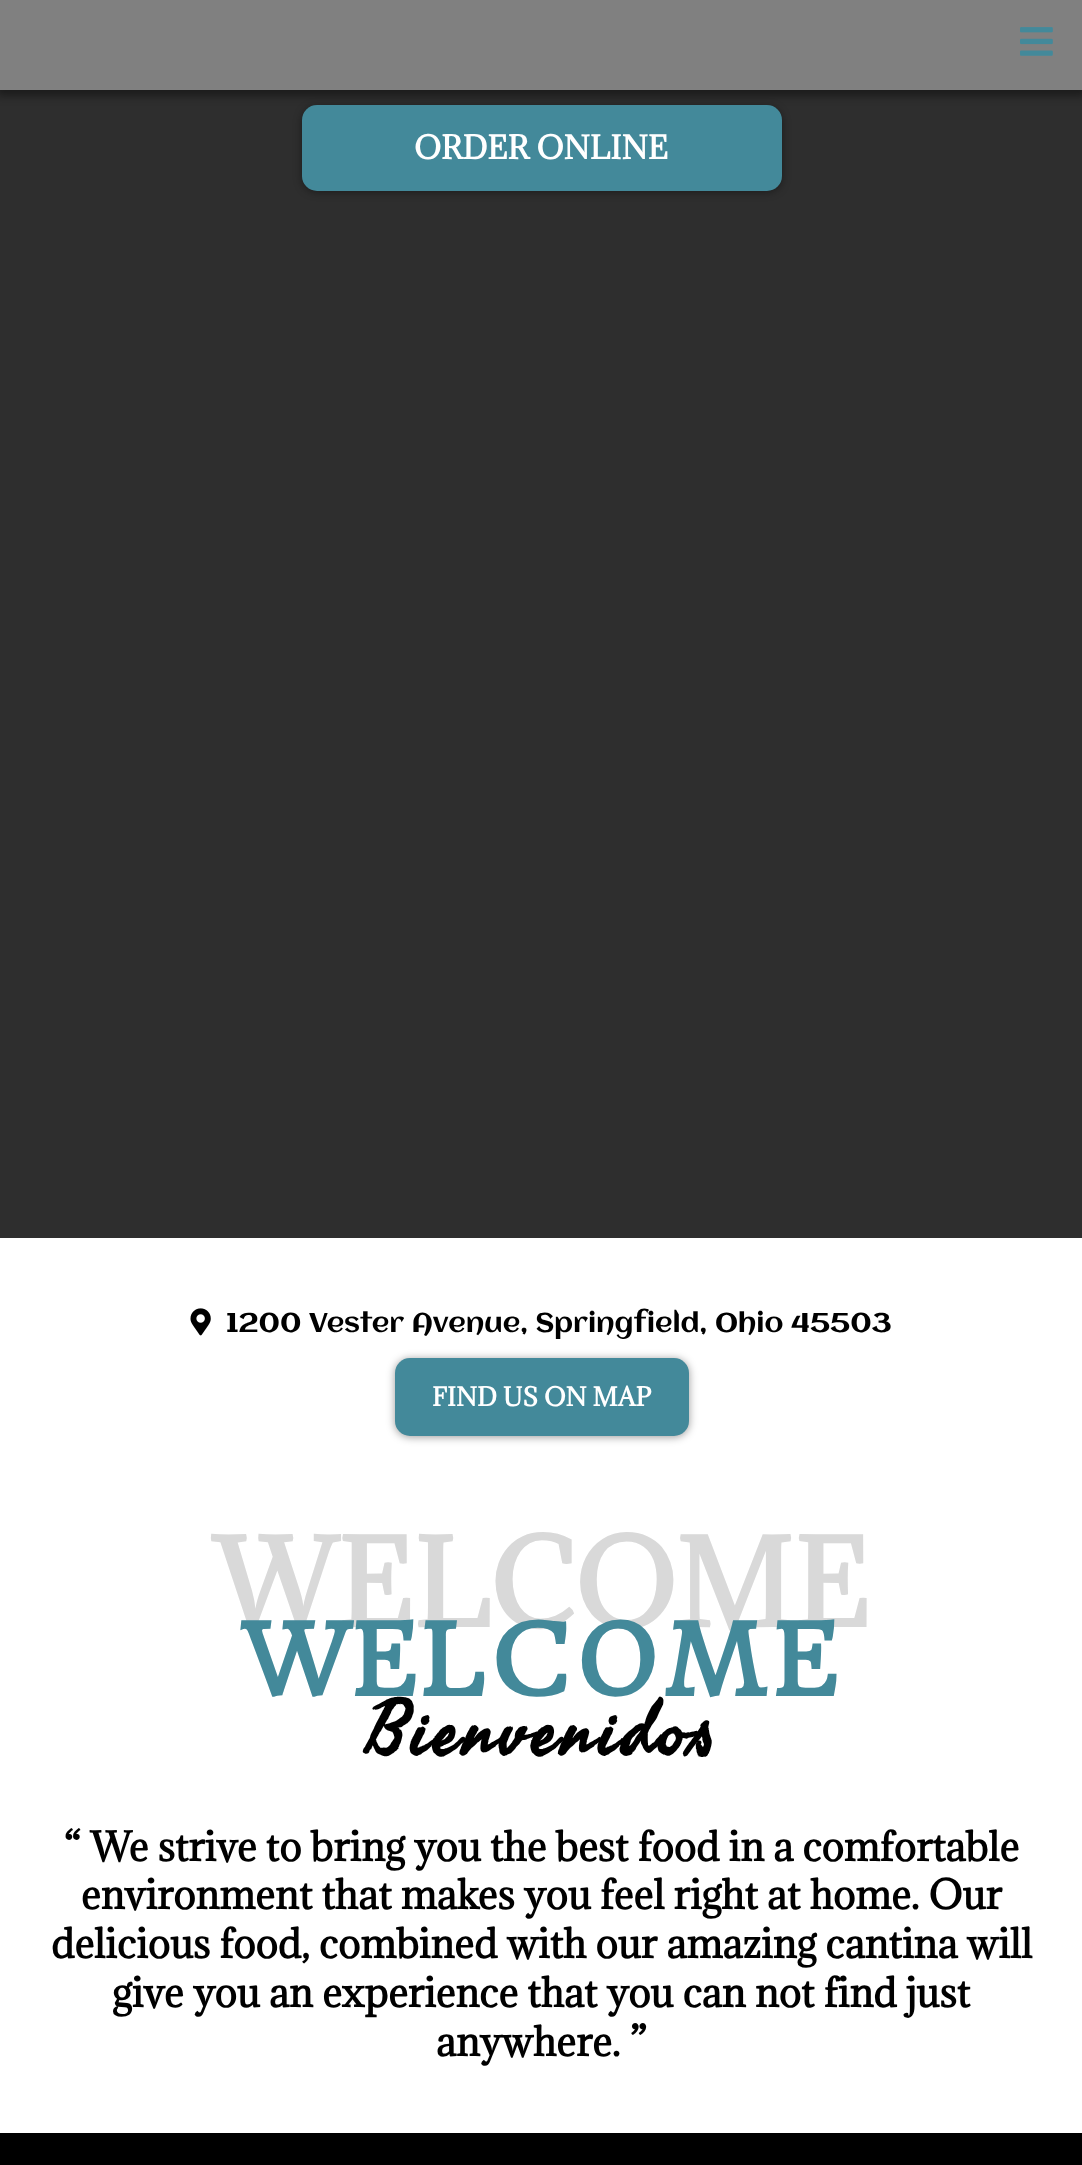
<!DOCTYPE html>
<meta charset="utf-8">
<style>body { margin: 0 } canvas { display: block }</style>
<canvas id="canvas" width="1082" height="2165"></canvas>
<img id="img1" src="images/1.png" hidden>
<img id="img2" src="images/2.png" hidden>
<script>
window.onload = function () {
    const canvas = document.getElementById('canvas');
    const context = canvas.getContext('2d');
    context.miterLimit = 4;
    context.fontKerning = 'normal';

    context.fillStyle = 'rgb(255, 255, 255)';
    context.fillRect(0, 0, 1082, 2165);
    context.fillStyle = 'rgb(46, 46, 46)';
    context.fillRect(0, 90, 1082, 1148);
    context.fillStyle = 'rgba(0, 0, 0, 0.4)';
    context.filter = 'blur(4px)';
    context.beginPath();
    context.rect(-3, 0, 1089, 96);
    context.fill();
    context.filter = 'none';
    context.fillStyle = 'rgb(128, 128, 128)';
    context.fillRect(0, 0, 1082, 90);
    context.drawImage(document.getElementById('img1'), 1020, 27, 33, 29);
    context.fillStyle = 'rgba(0, 0, 0, 0.4)';
    context.filter = 'blur(4px)';
    context.beginPath();
    context.roundRect(302, 107, 480, 85, 15);
    context.fill();
    context.filter = 'none';
    context.fillStyle = 'rgb(67, 137, 154)';
    context.beginPath();
    context.roundRect(302, 105, 480, 86, 15);
    context.fill();
    context.drawImage(document.getElementById('img2'), 190, 1308, 21, 28);
    context.fillStyle = 'rgba(0, 0, 0, 0.4)';
    context.filter = 'blur(4px)';
    context.beginPath();
    context.roundRect(395, 1359, 294, 78, 15);
    context.fill();
    context.filter = 'none';
    context.fillStyle = 'rgb(67, 137, 154)';
    context.beginPath();
    context.roundRect(395, 1358, 294, 78, 15);
    context.fill();
    context.fillStyle = 'rgb(0, 0, 0)';
    context.fillRect(0, 2133, 1082, 32);
    context.font = 'bold 30px Adamina';
    context.fillStyle = 'rgb(255, 255, 255)';
    context.fillText('ORDER ONLINE', 414, 159);
    context.font = '27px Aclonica';
    context.fillStyle = 'rgb(0, 0, 0)';
    context.fillText('1200 Vester Avenue, Springfield, Ohio 45503', 226, 1332);
    context.font = 'bold 24px Adamina';
    context.fillStyle = 'rgb(255, 255, 255)';
    context.fillText('FIND US ON MAP', 432, 1406);
    context.font = 'bold 112.5px Adamina';
    context.fillStyle = 'rgb(217, 217, 217)';
    context.fillText('WELCOME', 213, 1627);
    context.letterSpacing = '4.5px';
    context.font = 'bold 97.5px HeadlandOne';
    context.fillStyle = 'rgb(67, 137, 154)';
    context.fillText('WELCOME', 241, 1696);
    context.font = 'bold 75px Seaweed Script';
    context.fillStyle = 'rgb(0, 0, 0)';
    context.fillText('Bienvenidos', 365, 1754);
    context.letterSpacing = '0px';
    context.font = 'bold 37.5px Adamina';
    context.fillText('“ We strive to bring you the best food in a comfortable', 64, 1861);
    context.fillText('environment that makes you feel right at home. Our', 81, 1909);
    context.fillText('delicious food, combined with our amazing cantina will', 51, 1958);
    context.fillText('give you an experience that you can not find just', 112, 2007);
    context.fillText('anywhere. ”', 436, 2056);
};
</script>
